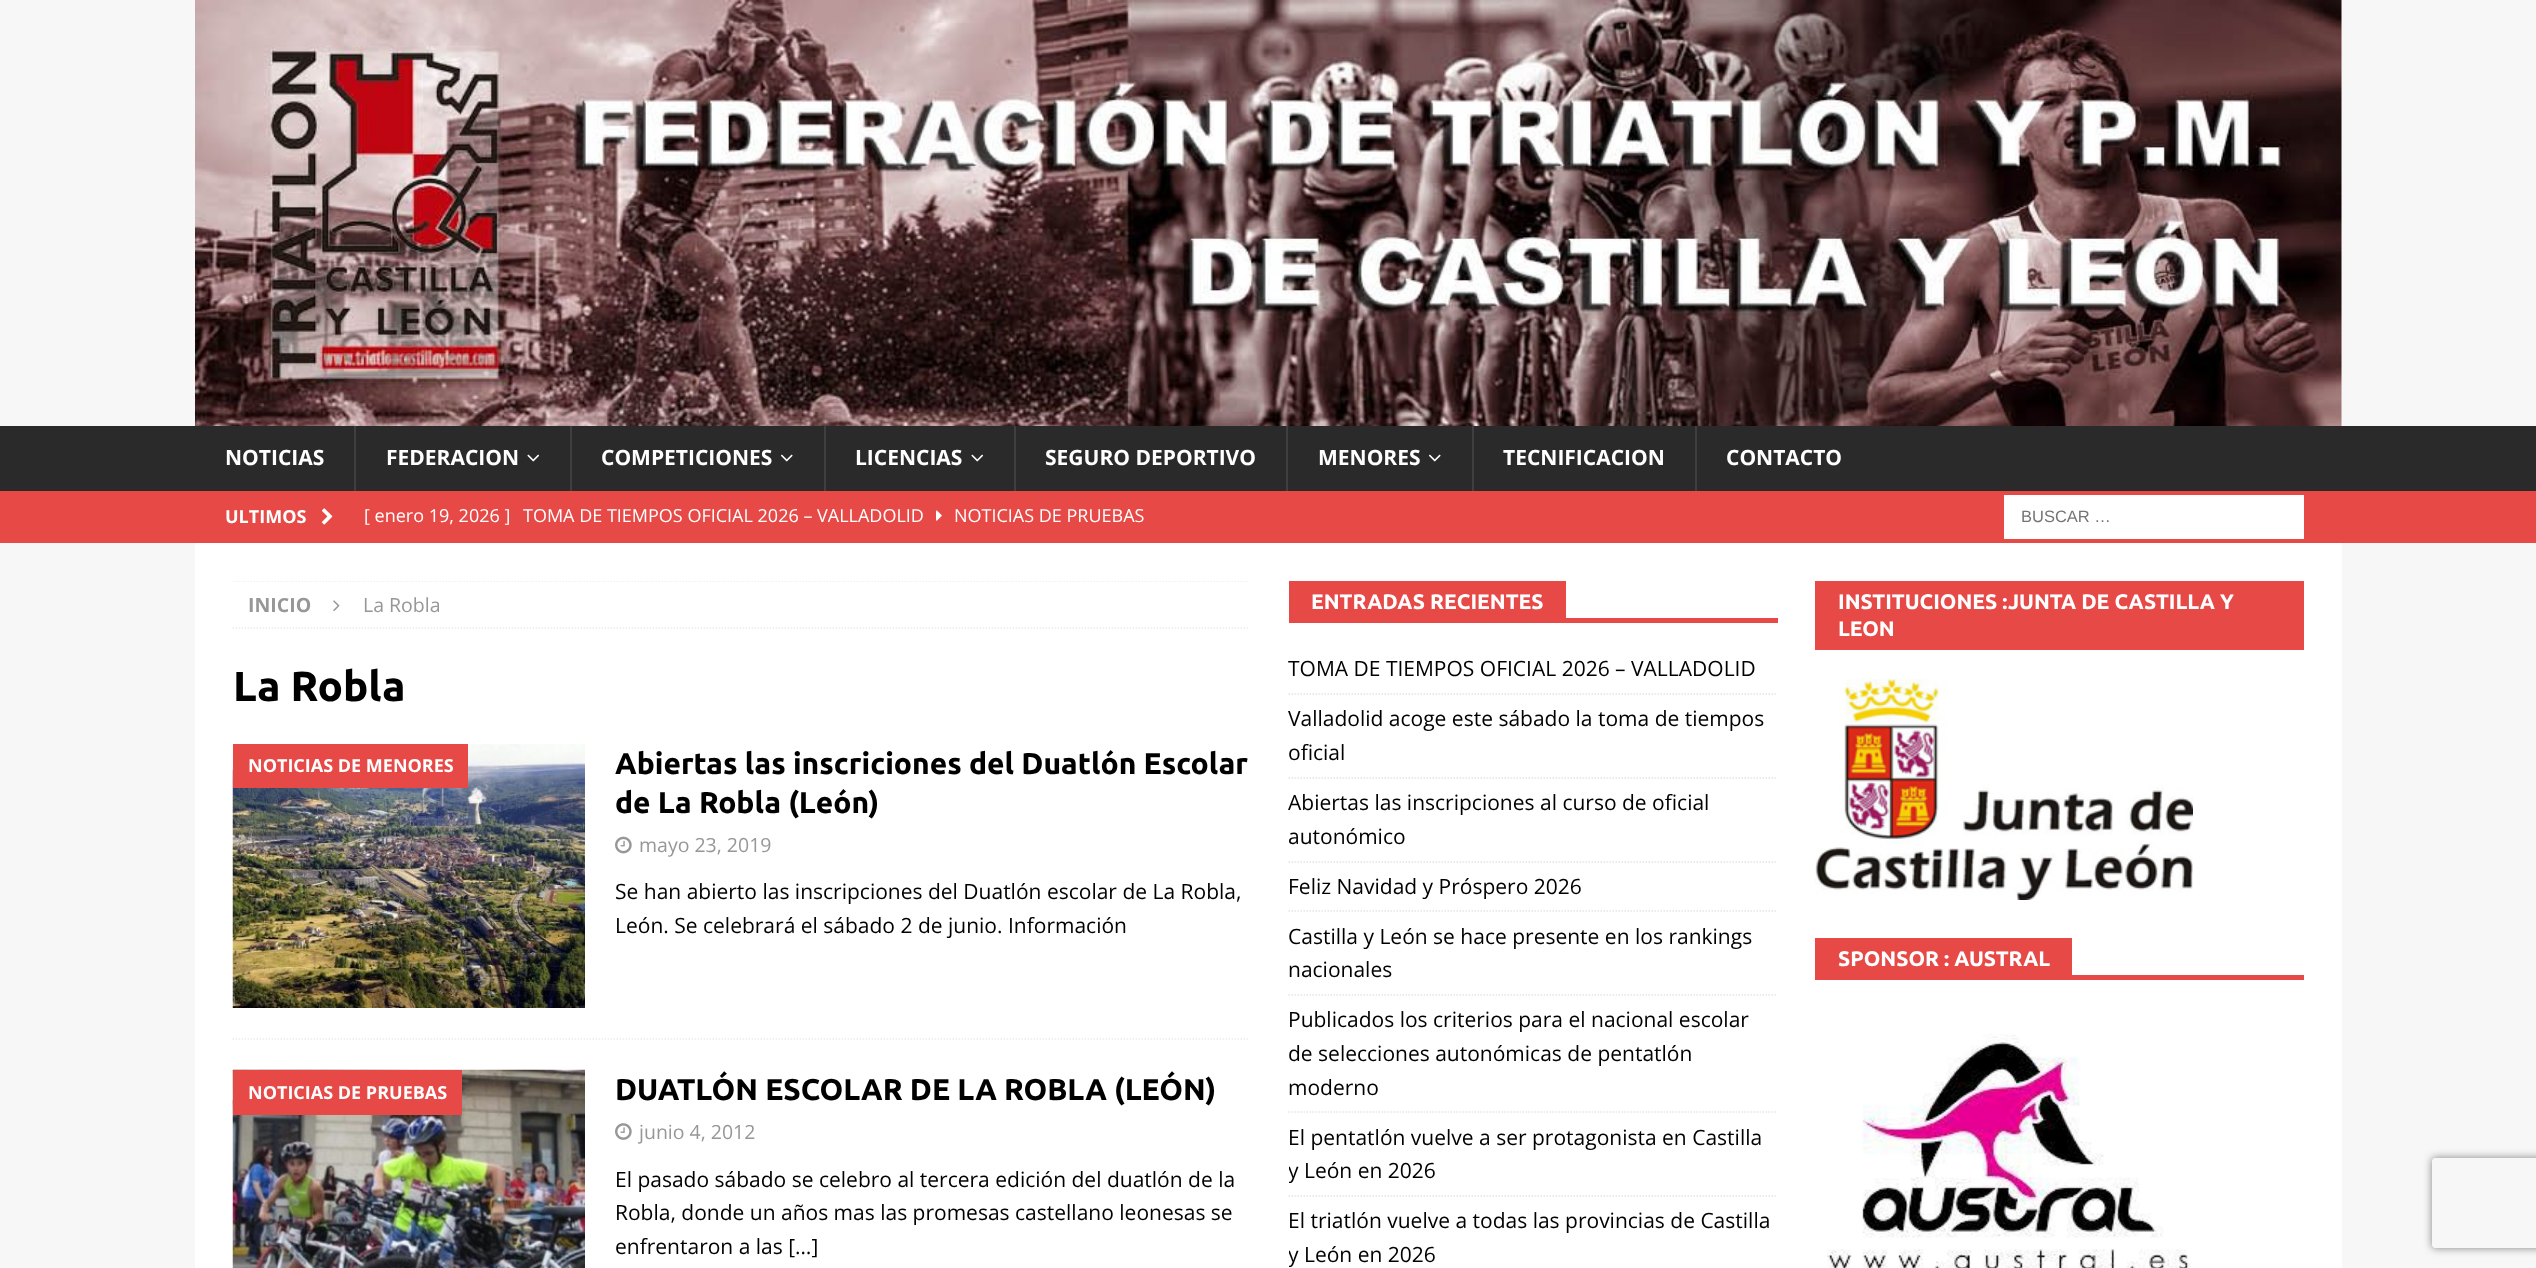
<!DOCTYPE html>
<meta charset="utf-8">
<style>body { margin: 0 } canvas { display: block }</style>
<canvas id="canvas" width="2536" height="1268"></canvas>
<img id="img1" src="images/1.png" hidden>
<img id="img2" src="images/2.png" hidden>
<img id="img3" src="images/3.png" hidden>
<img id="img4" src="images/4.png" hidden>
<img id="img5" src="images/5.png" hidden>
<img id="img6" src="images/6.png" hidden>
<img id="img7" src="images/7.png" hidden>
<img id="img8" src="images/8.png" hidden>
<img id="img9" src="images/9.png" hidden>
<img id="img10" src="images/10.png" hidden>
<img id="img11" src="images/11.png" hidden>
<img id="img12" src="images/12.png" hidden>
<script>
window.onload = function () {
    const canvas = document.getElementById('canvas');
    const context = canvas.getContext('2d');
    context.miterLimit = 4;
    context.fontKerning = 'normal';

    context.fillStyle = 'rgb(247, 247, 247)';
    context.fillRect(0, 0, 2536, 1268);
    context.drawImage(document.getElementById('img1'), 195, 0, 2147, 426);
    context.fillStyle = 'rgb(42, 42, 42)';
    context.fillRect(0, 426, 2536, 65);
    context.fillStyle = 'rgb(63, 63, 63)';
    context.fillRect(354, 426, 2, 65);
    context.drawImage(document.getElementById('img2'), 527, 454, 13, 8);
    context.fillRect(570, 426, 2, 65);
    context.drawImage(document.getElementById('img3'), 780, 454, 13, 8);
    context.fillRect(824, 426, 2, 65);
    context.drawImage(document.getElementById('img2'), 971, 454, 13, 8);
    context.fillRect(1014, 426, 2, 65);
    context.fillRect(1286, 426, 2, 65);
    context.drawImage(document.getElementById('img3'), 1428, 454, 13, 8);
    context.fillRect(1472, 426, 2, 65);
    context.fillRect(1695, 426, 2, 65);
    context.fillStyle = 'rgb(230, 73, 70)';
    context.fillRect(0, 491, 2536, 52);
    context.drawImage(document.getElementById('img4'), 321, 508, 12, 17);
    context.drawImage(document.getElementById('img5'), 936, 510, 6, 11);
    context.fillStyle = 'rgb(255, 255, 255)';
    context.fillRect(2004, 495, 300, 44);
    context.fillRect(195, 543, 2147, 725);
    context.save();
    context.beginPath();
    context.rect(233, 581, 1017, 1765);
    context.clip();
    context.beginPath();
    context.moveTo(232.5, 581);
    context.lineTo(1249.5, 581);
    context.strokeStyle = 'rgb(235, 235, 235)';
    context.lineWidth = 1.5;
    context.setLineDash([1.5, 1.5]);
    context.stroke();
    context.restore();
    context.beginPath();
    context.moveTo(232.5, 628);
    context.lineTo(1249.5, 628);
    context.strokeStyle = 'rgb(235, 235, 235)';
    context.lineWidth = 1.5;
    context.setLineDash([1.5, 1.5]);
    context.stroke();
    context.drawImage(document.getElementById('img6'), 333, 600, 7, 11);
    context.beginPath();
    context.moveTo(232.5, 1039);
    context.lineTo(1249.5, 1039);
    context.stroke();
    context.drawImage(document.getElementById('img7'), 232, 744, 353, 264);
    context.fillStyle = 'rgb(230, 73, 70)';
    context.fillRect(233, 744, 235, 44);
    context.drawImage(document.getElementById('img8'), 615, 836, 17, 18);
    context.drawImage(document.getElementById('img9'), 232, 1069, 353, 199);
    context.fillRect(233, 1070, 229, 45);
    context.drawImage(document.getElementById('img10'), 615, 1123, 17, 17);
    context.fillRect(1289, 618, 489, 5);
    context.fillRect(1289, 581, 277, 37);
    context.beginPath();
    context.moveTo(1288.5, 694);
    context.lineTo(1777.5, 694);
    context.strokeStyle = 'rgb(229, 229, 229)';
    context.stroke();
    context.beginPath();
    context.moveTo(1288.5, 778);
    context.lineTo(1777.5, 778);
    context.stroke();
    context.beginPath();
    context.moveTo(1288.5, 862);
    context.lineTo(1777.5, 862);
    context.stroke();
    context.beginPath();
    context.moveTo(1288.5, 911);
    context.lineTo(1777.5, 911);
    context.stroke();
    context.beginPath();
    context.moveTo(1288.5, 995);
    context.lineTo(1777.5, 995);
    context.stroke();
    context.beginPath();
    context.moveTo(1288.5, 1112);
    context.lineTo(1777.5, 1112);
    context.stroke();
    context.beginPath();
    context.moveTo(1288.5, 1196);
    context.lineTo(1777.5, 1196);
    context.stroke();
    context.fillRect(1815, 581, 489, 69);
    context.drawImage(document.getElementById('img11'), 1815, 679, 378, 221);
    context.fillRect(1815, 975, 489, 5);
    context.fillRect(1815, 938, 257, 37);
    context.drawImage(document.getElementById('img12'), 1827, 1034, 364, 234);
    context.save();
    context.beginPath();
    context.moveTo(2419, 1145);
    context.lineTo(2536, 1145);
    context.lineTo(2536, 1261);
    context.lineTo(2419, 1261);
    context.closePath();
    context.moveTo(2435, 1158);
    context.lineTo(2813, 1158);
    context.bezierCurveTo(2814.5, 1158, 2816, 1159.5, 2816, 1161);
    context.lineTo(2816, 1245);
    context.bezierCurveTo(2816, 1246.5, 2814.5, 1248, 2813, 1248);
    context.lineTo(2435, 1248);
    context.bezierCurveTo(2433.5, 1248, 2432, 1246.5, 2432, 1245);
    context.lineTo(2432, 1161);
    context.bezierCurveTo(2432, 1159.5, 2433.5, 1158, 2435, 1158);
    context.closePath();
    context.clip('evenodd');
    context.fillStyle = 'rgb(128, 128, 128)';
    context.filter = 'blur(4px)';
    context.beginPath();
    context.roundRect(2432, 1158, 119, 90, 3);
    context.fill();
    context.filter = 'none';
    context.restore();
    context.font = 'bold 21px Open Sans';
    context.fillStyle = 'rgb(255, 255, 255)';
    context.fillText('NOTICIAS', 225, 465);
    context.fillText('FEDERACION', 386, 465);
    context.fillText('COMPETICIONES', 601, 465);
    context.fillText('LICENCIAS', 855, 465);
    context.fillText('SEGURO DEPORTIVO', 1045, 465);
    context.fillText('MENORES', 1318, 465);
    context.fillText('TECNIFICACION', 1503, 465);
    context.fillText('CONTACTO', 1726, 465);
    context.font = 'bold 18px Open Sans';
    context.fillText('ULTIMOS', 225, 523);
    context.font = '18px Open Sans';
    context.fillText('[ enero 19, 2026 ]', 364, 522);
    context.fillText('TOMA DE TIEMPOS OFICIAL 2026 – VALLADOLID', 523, 522);
    context.fillText('NOTICIAS DE PRUEBAS', 954, 522);
    context.font = '16.5px Liberation Sans';
    context.fillStyle = 'rgb(117, 117, 117)';
    context.fillText('BUSCAR …', 2021, 522);
    context.font = 'bold 19.5px Open Sans';
    context.fillStyle = 'rgb(151, 151, 151)';
    context.fillText('INICIO', 248, 612);
    context.font = '19.5px Open Sans';
    context.fillText('La Robla', 363, 612);
    context.font = 'bold 42px Ubuntu';
    context.fillStyle = 'rgb(0, 0, 0)';
    context.fillText('La Robla', 233, 701);
    context.font = 'bold 18px Open Sans';
    context.fillStyle = 'rgb(255, 255, 255)';
    context.fillText('NOTICIAS DE MENORES', 248, 772);
    context.font = 'bold 30px Ubuntu';
    context.fillStyle = 'rgb(0, 0, 0)';
    context.fillText('Abiertas las inscriciones del Duatlón Escolar', 615, 774);
    context.fillText('de La Robla (León)', 615, 813);
    context.font = '19.5px Open Sans';
    context.fillStyle = 'rgb(151, 151, 151)';
    context.fillText('mayo 23, 2019', 639, 852);
    context.font = '21px Open Sans';
    context.fillStyle = 'rgb(0, 0, 0)';
    context.fillText('Se han abierto las inscripciones del Duatlón escolar de La Robla,', 615, 899);
    context.fillText('León. Se celebrará el sábado 2 de junio. Información', 615, 933);
    context.font = 'bold 18px Open Sans';
    context.fillStyle = 'rgb(255, 255, 255)';
    context.fillText('NOTICIAS DE PRUEBAS', 248, 1099);
    context.font = 'bold 30px Ubuntu';
    context.fillStyle = 'rgb(0, 0, 0)';
    context.fillText('DUATLÓN ESCOLAR DE LA ROBLA (LEÓN)', 615, 1100);
    context.font = '19.5px Open Sans';
    context.fillStyle = 'rgb(151, 151, 151)';
    context.fillText('junio 4, 2012', 639, 1139);
    context.font = '21px Open Sans';
    context.fillStyle = 'rgb(0, 0, 0)';
    context.fillText('El pasado sábado se celebro al tercera edición del duatlón de la', 615, 1187);
    context.fillText('Robla, donde un años mas las promesas castellano leonesas se', 615, 1220);
    context.fillText('enfrentaron a las […]', 615, 1254);
    context.font = 'bold 21px Ubuntu';
    context.fillStyle = 'rgb(255, 255, 255)';
    context.fillText('ENTRADAS RECIENTES', 1311, 609);
    context.font = '21px Open Sans';
    context.fillStyle = 'rgb(0, 0, 0)';
    context.fillText('TOMA DE TIEMPOS OFICIAL 2026 – VALLADOLID', 1288, 676);
    context.fillText('Valladolid acoge este sábado la toma de tiempos', 1288, 726);
    context.fillText('oficial', 1288, 760);
    context.fillText('Abiertas las inscripciones al curso de oficial', 1288, 810);
    context.fillText('autonómico', 1288, 844);
    context.fillText('Feliz Navidad y Próspero 2026', 1288, 894);
    context.fillText('Castilla y León se hace presente en los rankings', 1288, 944);
    context.fillText('nacionales', 1288, 977);
    context.fillText('Publicados los criterios para el nacional escolar', 1288, 1027);
    context.fillText('de selecciones autonómicas de pentatlón', 1288, 1061);
    context.fillText('moderno', 1288, 1095);
    context.fillText('El pentatlón vuelve a ser protagonista en Castilla', 1288, 1145);
    context.save();
    context.beginPath();
    context.rect(1289, 581, 489, 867);
    context.clip();
    context.fillText('y León en 2026', 1288, 1178);
    context.restore();
    context.fillText('El triatlón vuelve a todas las provincias de Castilla', 1288, 1228);
    context.save();
    context.beginPath();
    context.rect(1289, 581, 489, 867);
    context.clip();
    context.fillText('y León en 2026', 1288, 1262);
    context.restore();
    context.font = 'bold 21px Ubuntu';
    context.fillStyle = 'rgb(255, 255, 255)';
    context.fillText('INSTITUCIONES :JUNTA DE CASTILLA Y', 1838, 609);
    context.fillText('LEON', 1838, 636);
    context.fillText('SPONSOR : AUSTRAL', 1838, 966);
};
</script>
